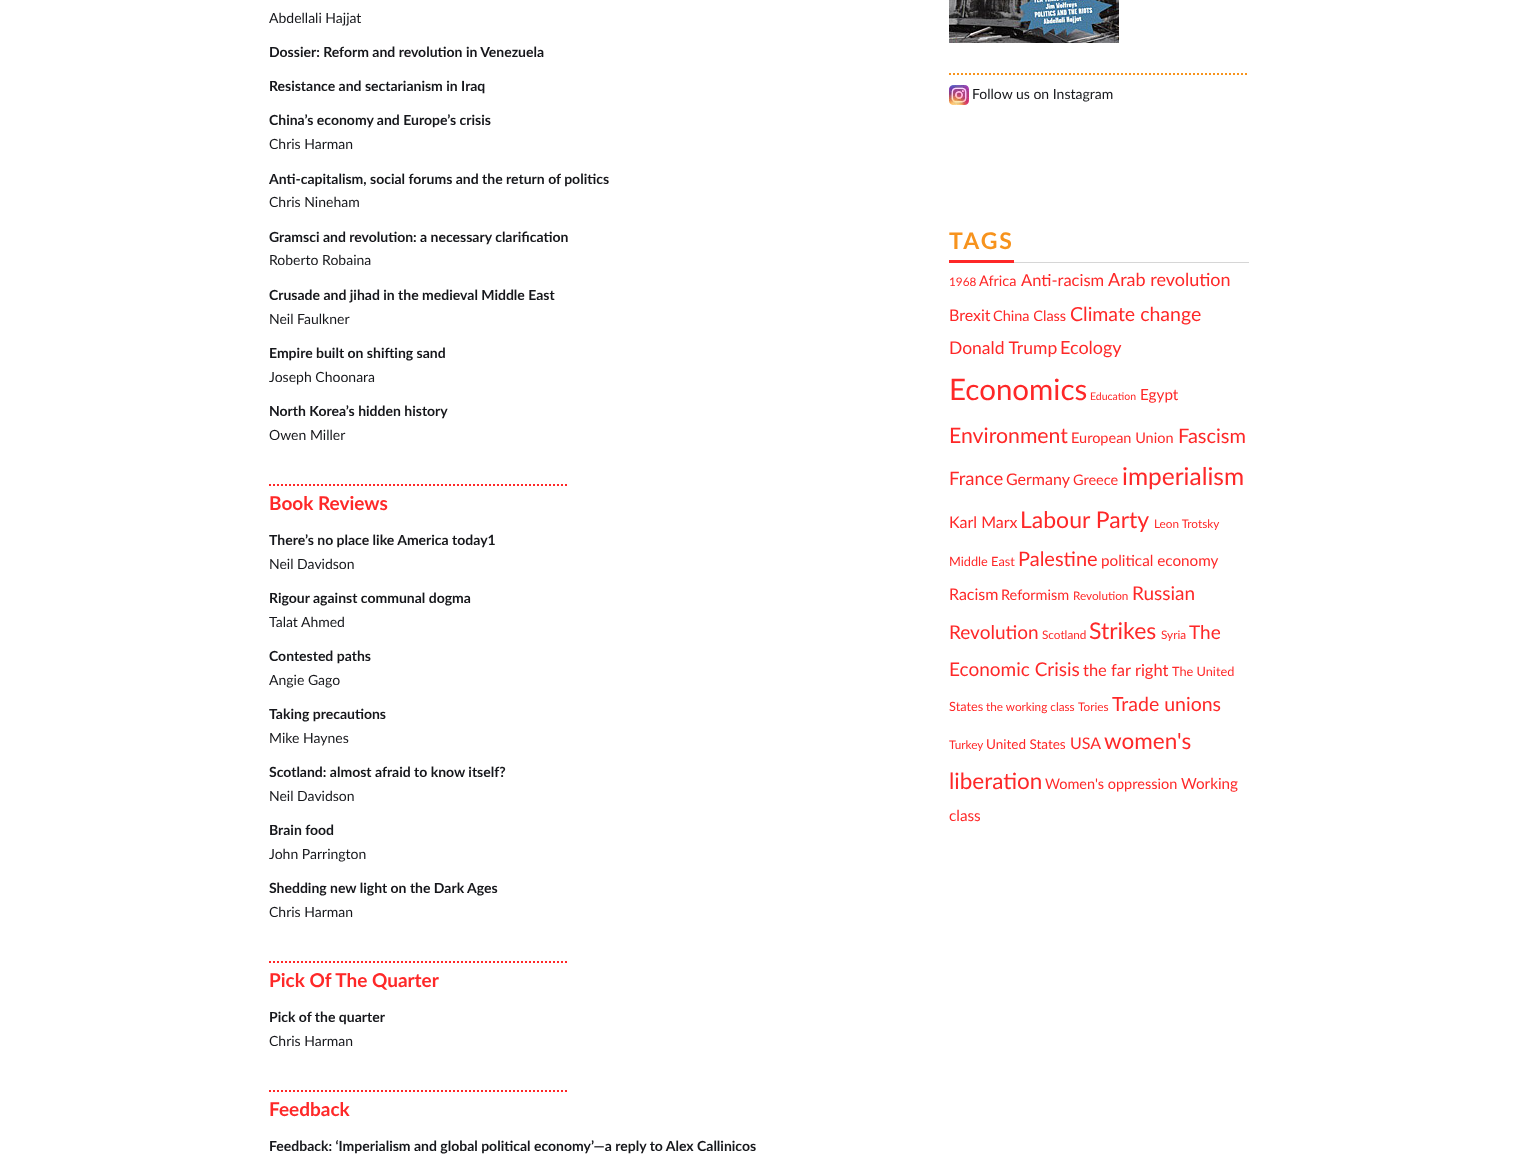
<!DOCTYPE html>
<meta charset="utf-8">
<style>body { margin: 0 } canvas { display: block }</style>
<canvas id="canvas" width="1517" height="1160"></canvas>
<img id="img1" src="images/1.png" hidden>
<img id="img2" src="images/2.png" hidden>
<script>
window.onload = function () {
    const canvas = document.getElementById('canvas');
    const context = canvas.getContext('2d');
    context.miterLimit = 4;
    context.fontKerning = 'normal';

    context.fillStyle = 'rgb(255, 255, 255)';
    context.fillRect(0, 0, 1517, 1160);
    context.beginPath();
    context.moveTo(269, 485);
    context.lineTo(569, 485);
    context.strokeStyle = 'rgb(254, 40, 40)';
    context.lineWidth = 2;
    context.setLineDash([2, 2]);
    context.stroke();
    context.beginPath();
    context.moveTo(269, 962);
    context.lineTo(569, 962);
    context.stroke();
    context.beginPath();
    context.moveTo(269, 1091);
    context.lineTo(569, 1091);
    context.stroke();
    context.drawImage(document.getElementById('img1'), 949, 0, 170, 43);
    context.beginPath();
    context.moveTo(949, 74);
    context.lineTo(1249, 74);
    context.strokeStyle = 'rgb(247, 147, 29)';
    context.stroke();
    context.drawImage(document.getElementById('img2'), 949, 85, 20, 20);
    context.fillStyle = 'rgb(214, 214, 214)';
    context.fillRect(1014, 262, 235, 1);
    context.fillStyle = 'rgb(254, 40, 40)';
    context.fillRect(949, 260, 65, 3);
    context.font = '14px Lato';
    context.fillStyle = 'rgb(22, 23, 27)';
    context.fillText('Abdellali Hajjat', 269, 23);
    context.font = 'bold 14px Lato';
    context.fillText('Dossier: Reform and revolution in Venezuela', 269, 57);
    context.fillText('Resistance and sectarianism in Iraq', 269, 91);
    context.fillText('China’s economy and Europe’s crisis', 269, 125);
    context.font = '14px Lato';
    context.fillText('Chris Harman', 269, 149);
    context.font = 'bold 14px Lato';
    context.fillText('Anti-capitalism, social forums and the return of politics', 269, 184);
    context.font = '14px Lato';
    context.fillText('Chris Nineham', 269, 207);
    context.font = 'bold 14px Lato';
    context.fillText('Gramsci and revolution: a necessary clarification', 269, 242);
    context.font = '14px Lato';
    context.fillText('Roberto Robaina', 269, 265);
    context.font = 'bold 14px Lato';
    context.fillText('Crusade and jihad in the medieval Middle East', 269, 300);
    context.font = '14px Lato';
    context.fillText('Neil Faulkner', 269, 324);
    context.font = 'bold 14px Lato';
    context.fillText('Empire built on shifting sand', 269, 358);
    context.font = '14px Lato';
    context.fillText('Joseph Choonara', 269, 382);
    context.font = 'bold 14px Lato';
    context.fillText('North Korea’s hidden history', 269, 416);
    context.font = '14px Lato';
    context.fillText('Owen Miller', 269, 440);
    context.font = 'bold 19px Lato';
    context.fillStyle = 'rgb(254, 40, 40)';
    context.fillText('Book Reviews', 269, 510);
    context.font = 'bold 14px Lato';
    context.fillStyle = 'rgb(22, 23, 27)';
    context.fillText('There’s no place like America today1', 269, 545);
    context.font = '14px Lato';
    context.fillText('Neil Davidson', 269, 569);
    context.font = 'bold 14px Lato';
    context.fillText('Rigour against communal dogma', 269, 603);
    context.font = '14px Lato';
    context.fillText('Talat Ahmed', 269, 627);
    context.font = 'bold 14px Lato';
    context.fillText('Contested paths', 269, 661);
    context.font = '14px Lato';
    context.fillText('Angie Gago', 269, 685);
    context.font = 'bold 14px Lato';
    context.fillText('Taking precautions', 269, 719);
    context.font = '14px Lato';
    context.fillText('Mike Haynes', 269, 743);
    context.font = 'bold 14px Lato';
    context.fillText('Scotland: almost afraid to know itself?', 269, 777);
    context.font = '14px Lato';
    context.fillText('Neil Davidson', 269, 801);
    context.font = 'bold 14px Lato';
    context.fillText('Brain food', 269, 835);
    context.font = '14px Lato';
    context.fillText('John Parrington', 269, 859);
    context.font = 'bold 14px Lato';
    context.fillText('Shedding new light on the Dark Ages', 269, 893);
    context.font = '14px Lato';
    context.fillText('Chris Harman', 269, 917);
    context.font = 'bold 19px Lato';
    context.fillStyle = 'rgb(254, 40, 40)';
    context.fillText('Pick Of The Quarter', 269, 987);
    context.font = 'bold 14px Lato';
    context.fillStyle = 'rgb(22, 23, 27)';
    context.fillText('Pick of the quarter', 269, 1022);
    context.font = '14px Lato';
    context.fillText('Chris Harman', 269, 1046);
    context.font = 'bold 19px Lato';
    context.fillStyle = 'rgb(254, 40, 40)';
    context.fillText('Feedback', 269, 1116);
    context.font = 'bold 14px Lato';
    context.fillStyle = 'rgb(22, 23, 27)';
    context.fillText('Feedback: ‘Imperialism and global political economy’—a reply to Alex Callinicos', 269, 1151);
    context.font = '14px Lato';
    context.fillText('Follow us on Instagram', 972, 99);
    context.letterSpacing = '2px';
    context.font = 'bold 23px Lato';
    context.fillStyle = 'rgb(247, 147, 29)';
    context.fillText('TAGS', 949, 249);
    context.letterSpacing = '0px';
    context.font = '11.75px Lato';
    context.fillStyle = 'rgb(254, 40, 40)';
    context.fillText('1968', 949, 286);
    context.font = '14.5px Lato';
    context.fillText('Africa', 979, 286);
    context.font = '16.5px Lato';
    context.fillText('Anti-racism', 1021, 286);
    context.font = '18px Lato';
    context.fillText('Arab revolution', 1108, 286);
    context.font = '16px Lato';
    context.fillText('Brexit', 949, 321);
    context.font = '14.5px Lato';
    context.fillText('China Class', 993, 321);
    context.font = '19.5px Lato';
    context.fillText('Climate change', 1070, 321);
    context.font = '17.5px Lato';
    context.fillText('Donald Trump', 949, 354);
    context.font = '18px Lato';
    context.fillText('Ecology', 1060, 354);
    context.font = '29.5px Lato';
    context.fillText('Economics', 949, 400);
    context.font = '10.5px Lato';
    context.fillText('Education', 1090, 400);
    context.font = '15.25px Lato';
    context.fillText('Egypt', 1140, 400);
    context.font = '21.25px Lato';
    context.fillText('Environment', 949, 443);
    context.font = '14.5px Lato';
    context.fillText('European Union', 1071, 443);
    context.font = '20px Lato';
    context.fillText('Fascism', 1178, 443);
    context.font = '18.5px Lato';
    context.fillText('France', 949, 485);
    context.font = '16px Lato';
    context.fillText('Germany', 1006, 485);
    context.font = '14.5px Lato';
    context.fillText('Greece', 1073, 485);
    context.font = '24.5px Lato';
    context.fillText('imperialism', 1122, 485);
    context.font = '16px Lato';
    context.fillText('Karl Marx', 949, 528);
    context.font = '23px Lato';
    context.fillText('Labour Party', 1020, 528);
    context.font = '11.75px Lato';
    context.fillText('Leon Trotsky', 1154, 528);
    context.font = '12.75px Lato';
    context.fillText('Middle East', 949, 566);
    context.font = '20px Lato';
    context.fillText('Palestine', 1018, 566);
    context.font = '15.25px Lato';
    context.fillText('political economy', 1101, 566);
    context.font = '16px Lato';
    context.fillText('Racism', 949, 600);
    context.font = '14.5px Lato';
    context.fillText('Reformism', 1001, 600);
    context.font = '11.75px Lato';
    context.fillText('Revolution', 1073, 600);
    context.font = '19px Lato';
    context.fillText('Russian', 1132, 600);
    context.fillText('Revolution', 949, 639);
    context.font = '11.75px Lato';
    context.fillText('Scotland', 1042, 639);
    context.font = '23px Lato';
    context.fillText('Strikes', 1089, 639);
    context.font = '11.75px Lato';
    context.fillText('Syria', 1161, 639);
    context.font = '19px Lato';
    context.fillText('The', 1189, 639);
    context.fillText('Economic Crisis', 949, 676);
    context.font = '16.5px Lato';
    context.fillText('the far right', 1083, 676);
    context.font = '12.75px Lato';
    context.fillText('The United', 1172, 676);
    context.fillText('States', 949, 711);
    context.font = '11.75px Lato';
    context.fillText('the working class', 986, 711);
    context.fillText('Tories', 1078, 711);
    context.font = '19.5px Lato';
    context.fillText('Trade unions', 1112, 711);
    context.font = '11.75px Lato';
    context.fillText('Turkey', 949, 749);
    context.font = '13.5px Lato';
    context.fillText('United States', 986, 749);
    context.font = '16px Lato';
    context.fillText('USA', 1070, 749);
    context.font = '22.5px Lato';
    context.fillText('women\'s', 1104, 749);
    context.fillText('liberation', 949, 789);
    context.font = '14.5px Lato';
    context.fillText('Women\'s oppression', 1045, 789);
    context.font = '15.25px Lato';
    context.fillText('Working', 1181, 789);
    context.fillText('class', 949, 821);
};
</script>
